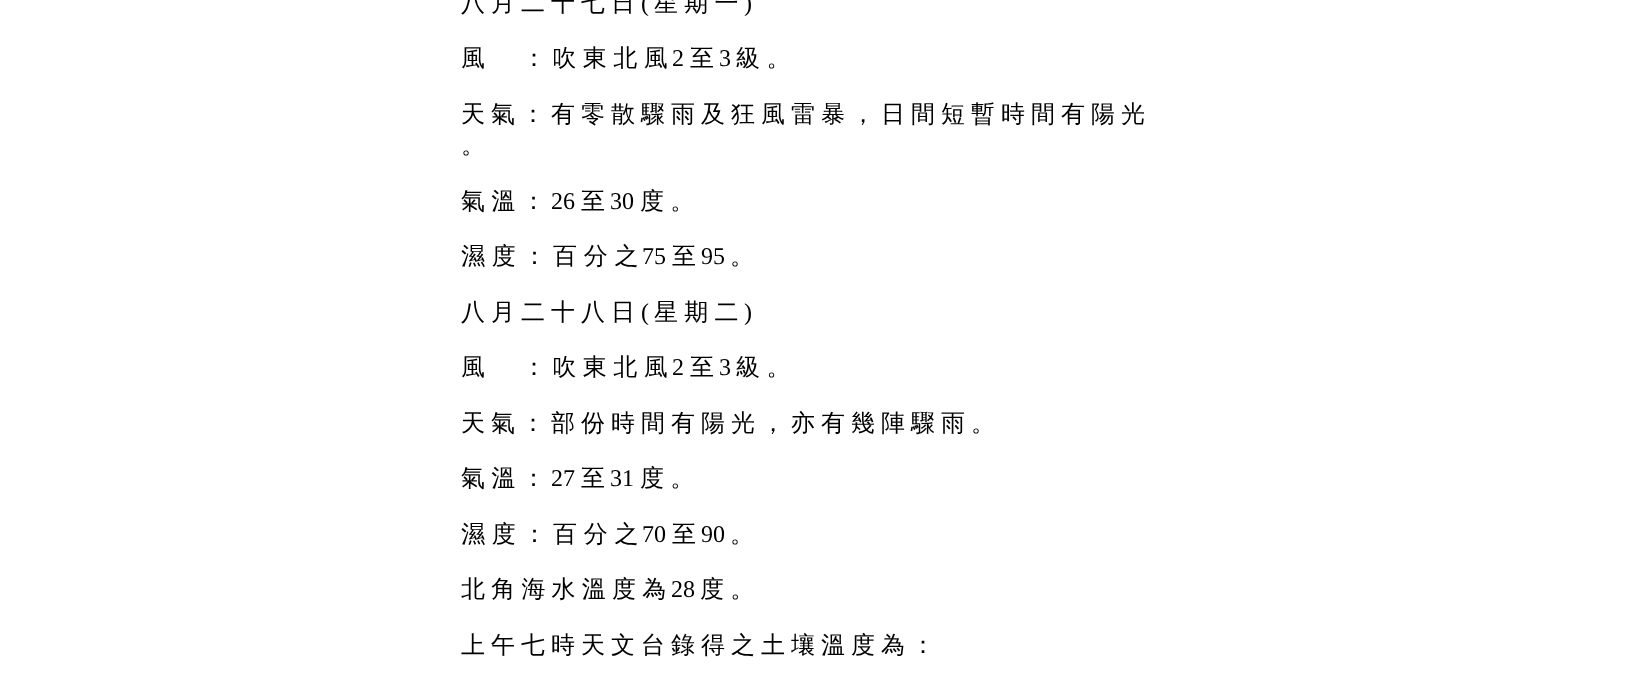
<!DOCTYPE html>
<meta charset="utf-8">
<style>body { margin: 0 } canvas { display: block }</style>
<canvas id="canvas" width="1625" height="676"></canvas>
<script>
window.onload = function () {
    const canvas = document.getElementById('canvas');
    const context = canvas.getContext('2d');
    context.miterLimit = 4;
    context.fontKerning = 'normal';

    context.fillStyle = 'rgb(255, 255, 255)';
    context.fillRect(0, 0, 1625, 676);
    context.wordSpacing = '-1.2px';
    context.font = '500 24px WenQuanYi Zen Hei';
    context.fillStyle = 'rgb(0, 0, 0)';
    context.fillText('八 月 二 十 七 日', 461, 11);
    context.wordSpacing = '0px';
    context.font = '24px Liberation Serif';
    context.fillText('(', 641, 11);
    context.wordSpacing = '-1px';
    context.font = '500 24px WenQuanYi Zen Hei';
    context.fillText('星 期 一', 654, 11);
    context.wordSpacing = '0px';
    context.font = '24px Liberation Serif';
    context.fillText(')', 744, 11);
    context.wordSpacing = '-0.75px';
    context.font = '500 24px WenQuanYi Zen Hei';
    context.fillText('風 　 ： 吹 東 北 風', 461, 66);
    context.wordSpacing = '0px';
    context.font = '24px Liberation Serif';
    context.fillText('2', 672, 66);
    context.font = '500 24px WenQuanYi Zen Hei';
    context.fillText('至', 690, 66);
    context.font = '24px Liberation Serif';
    context.fillText('3', 719, 66);
    context.wordSpacing = '-0.75px';
    context.font = '500 24px WenQuanYi Zen Hei';
    context.fillText('級 。', 736, 66);
    context.wordSpacing = '-1.2px';
    context.fillText('天 氣 ： 有 零 散 驟 雨 及 狂 風 雷 暴 ， 日 間 短 暫 時 間 有 陽 光', 461, 122);
    context.wordSpacing = '0px';
    context.fillText('。', 461, 153);
    context.wordSpacing = '-1px';
    context.fillText('氣 溫 ：', 461, 209);
    context.wordSpacing = '0px';
    context.font = '24px Liberation Serif';
    context.fillText('26', 551, 209);
    context.font = '500 24px WenQuanYi Zen Hei';
    context.fillText('至', 581, 209);
    context.font = '24px Liberation Serif';
    context.fillText('30', 610, 209);
    context.wordSpacing = '-1px';
    context.font = '500 24px WenQuanYi Zen Hei';
    context.fillText('度 。', 640, 209);
    context.wordSpacing = '-0.5px';
    context.fillText('濕 度 ： 百 分 之', 461, 264);
    context.wordSpacing = '0px';
    context.font = '24px Liberation Serif';
    context.fillText('75', 642, 264);
    context.font = '500 24px WenQuanYi Zen Hei';
    context.fillText('至', 672, 264);
    context.font = '24px Liberation Serif';
    context.fillText('95', 701, 264);
    context.font = '500 24px WenQuanYi Zen Hei';
    context.fillText('。', 730, 264);
    context.wordSpacing = '-1.2px';
    context.fillText('八 月 二 十 八 日', 461, 320);
    context.wordSpacing = '0px';
    context.font = '24px Liberation Serif';
    context.fillText('(', 641, 320);
    context.wordSpacing = '-1px';
    context.font = '500 24px WenQuanYi Zen Hei';
    context.fillText('星 期 二', 654, 320);
    context.wordSpacing = '0px';
    context.font = '24px Liberation Serif';
    context.fillText(')', 744, 320);
    context.wordSpacing = '-0.75px';
    context.font = '500 24px WenQuanYi Zen Hei';
    context.fillText('風 　 ： 吹 東 北 風', 461, 375);
    context.wordSpacing = '0px';
    context.font = '24px Liberation Serif';
    context.fillText('2', 672, 375);
    context.font = '500 24px WenQuanYi Zen Hei';
    context.fillText('至', 690, 375);
    context.font = '24px Liberation Serif';
    context.fillText('3', 719, 375);
    context.wordSpacing = '-0.75px';
    context.font = '500 24px WenQuanYi Zen Hei';
    context.fillText('級 。', 736, 375);
    context.wordSpacing = '-1.2px';
    context.fillText('天 氣 ： 部 份 時 間 有 陽 光 ， 亦 有 幾 陣 驟 雨 。', 461, 431);
    context.wordSpacing = '-1px';
    context.fillText('氣 溫 ：', 461, 486);
    context.wordSpacing = '0px';
    context.font = '24px Liberation Serif';
    context.fillText('27', 551, 486);
    context.font = '500 24px WenQuanYi Zen Hei';
    context.fillText('至', 581, 486);
    context.font = '24px Liberation Serif';
    context.fillText('31', 610, 486);
    context.wordSpacing = '-1px';
    context.font = '500 24px WenQuanYi Zen Hei';
    context.fillText('度 。', 640, 486);
    context.wordSpacing = '-0.5px';
    context.fillText('濕 度 ： 百 分 之', 461, 542);
    context.wordSpacing = '0px';
    context.font = '24px Liberation Serif';
    context.fillText('70', 642, 542);
    context.font = '500 24px WenQuanYi Zen Hei';
    context.fillText('至', 672, 542);
    context.font = '24px Liberation Serif';
    context.fillText('90', 701, 542);
    context.font = '500 24px WenQuanYi Zen Hei';
    context.fillText('。', 730, 542);
    context.wordSpacing = '-1px';
    context.fillText('北 角 海 水 溫 度 為', 461, 597);
    context.wordSpacing = '0px';
    context.font = '24px Liberation Serif';
    context.fillText('28', 671, 597);
    context.wordSpacing = '-1px';
    context.font = '500 24px WenQuanYi Zen Hei';
    context.fillText('度 。', 700, 597);
    context.wordSpacing = '-1.2px';
    context.fillText('上 午 七 時 天 文 台 錄 得 之 土 壤 溫 度 為 ：', 461, 653);
};
</script>
